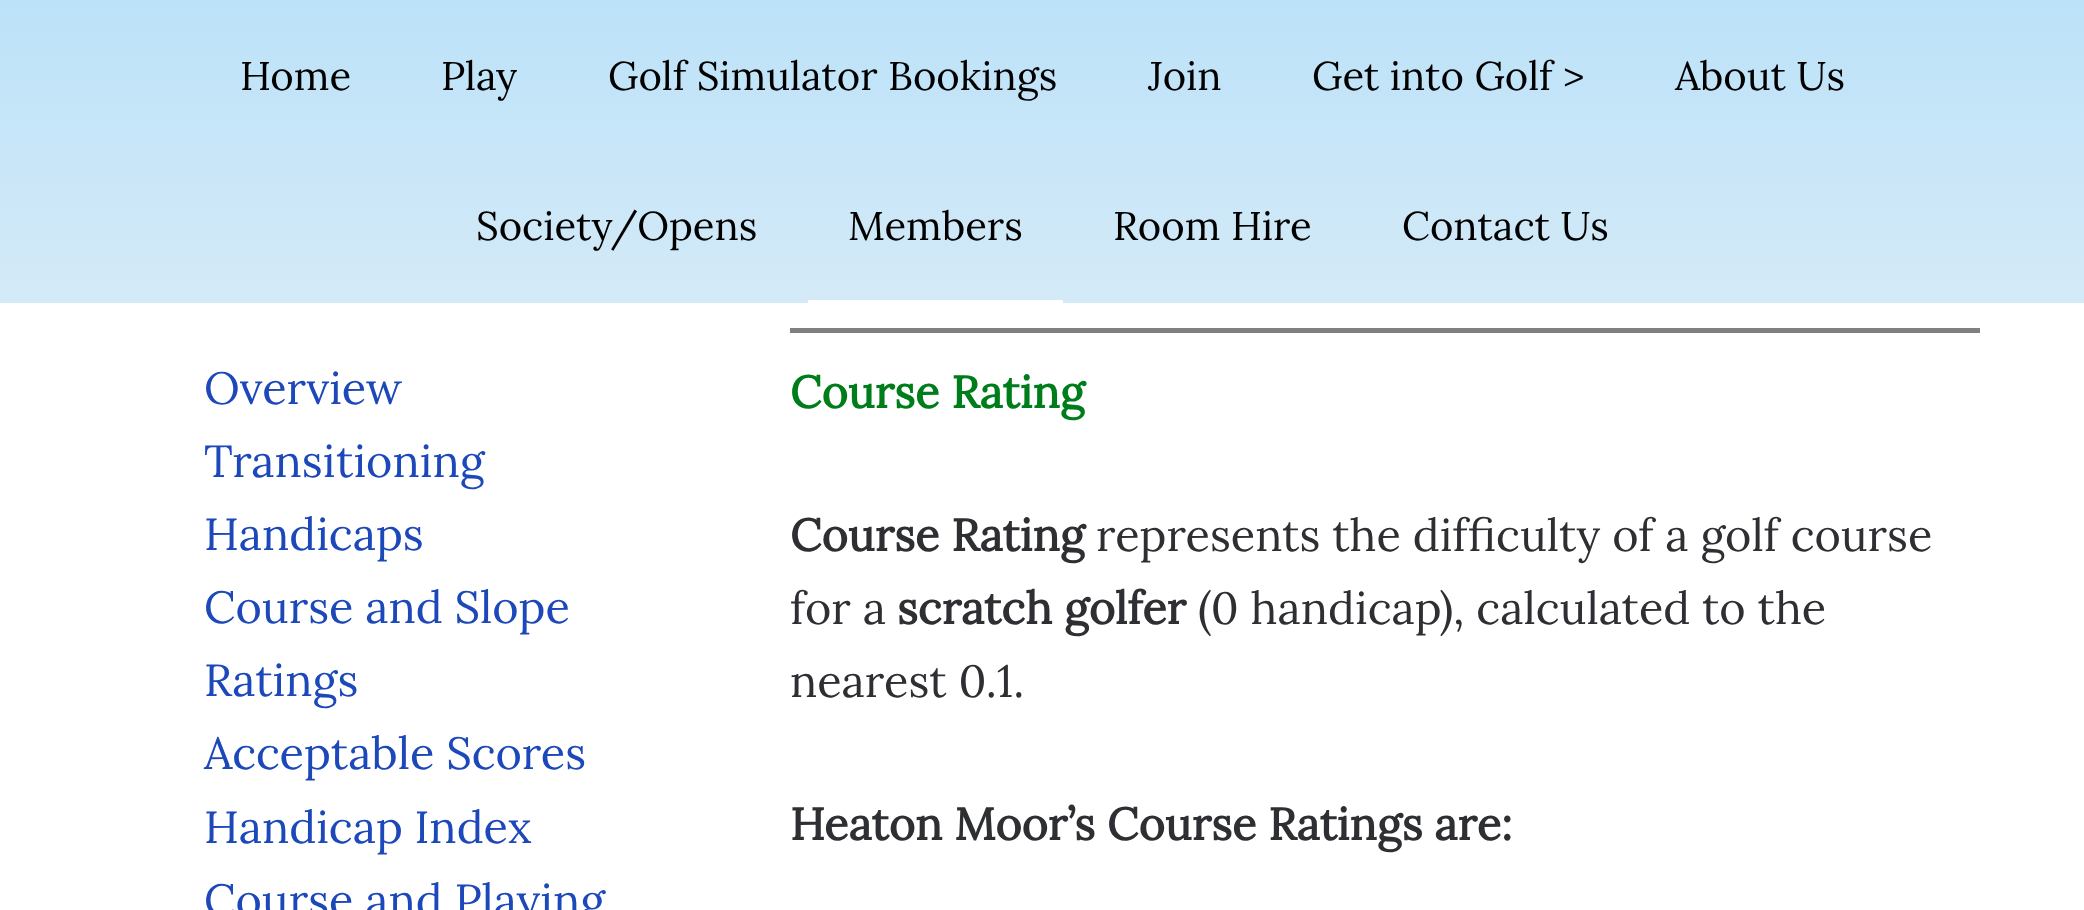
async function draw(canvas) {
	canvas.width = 2084;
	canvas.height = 910;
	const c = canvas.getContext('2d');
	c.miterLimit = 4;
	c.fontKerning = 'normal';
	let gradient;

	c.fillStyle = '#fff';
	c.fillRect(0, 0, 2084, 910);
	gradient = c.createLinearGradient(1043, 0, 1043, 303);
	gradient.addColorStop(0, '#bce2f9');
	gradient.addColorStop(1, '#d4eaf7');
	c.fillStyle = gradient;
	c.fillRect(0, 0, 2084, 303);
	c.font = '40px Lora';
	c.fillStyle = '#000';
	for (const [text, x, y] of [
		['Home', 240, 90],
		['Play', 441, 90],
		['Golf Simulator Bookings', 608, 90],
		['Join', 1148, 90],
		['Get into Golf >', 1312, 90],
		['About Us', 1675, 90],
		['Society/Opens', 476, 240],
	]) {
		c.fillText(text, x, y);
	}
	c.fillStyle = '#fff';
	c.fillRect(808, 300, 255, 3);
	c.fillStyle = '#000';
	for (const [text, x, y] of [
		['Members', 848, 240],
		['Room Hire', 1113, 240],
		['Contact Us', 1402, 240],
	]) {
		c.fillText(text, x, y);
	}
	c.font = '45px Lora';
	c.fillStyle = '#1c48b9';
	for (const [text, x, y] of [
		['Overview', 204, 404],
		['Transitioning', 204, 477],
		['Handicaps', 204, 550],
		['Course and Slope', 204, 623],
		['Ratings', 204, 696],
		['Acceptable Scores', 204, 769],
		['Handicap Index', 204, 843],
		['Course and Playing', 204, 916],
	]) {
		c.fillText(text, x, y);
	}
	c.fillStyle = '#808080';
	c.fillRect(790, 328, 1190, 5);
	c.font = 'bold 45px Lora';
	c.fillStyle = '#007d1b';
	c.fillText('Course Rating', 790, 408);
	c.fillStyle = '#2e2f33';
	c.fillText('Course Rating', 790, 551);
	c.font = '45px Lora';
	c.fillText('represents the difficulty of a golf course', 1096, 551);
	c.fillText('for a', 790, 624);
	c.font = 'bold 45px Lora';
	c.fillText('scratch golfer', 897, 624);
	c.font = '45px Lora';
	c.fillText('(0 handicap), calculated to the', 1198, 624);
	c.fillText('nearest 0.1.', 790, 697);
	c.font = 'bold 45px Lora';
	c.fillText('Heaton Moor’s Course Ratings are:', 790, 840);
}

draw(document.querySelector('canvas'));
